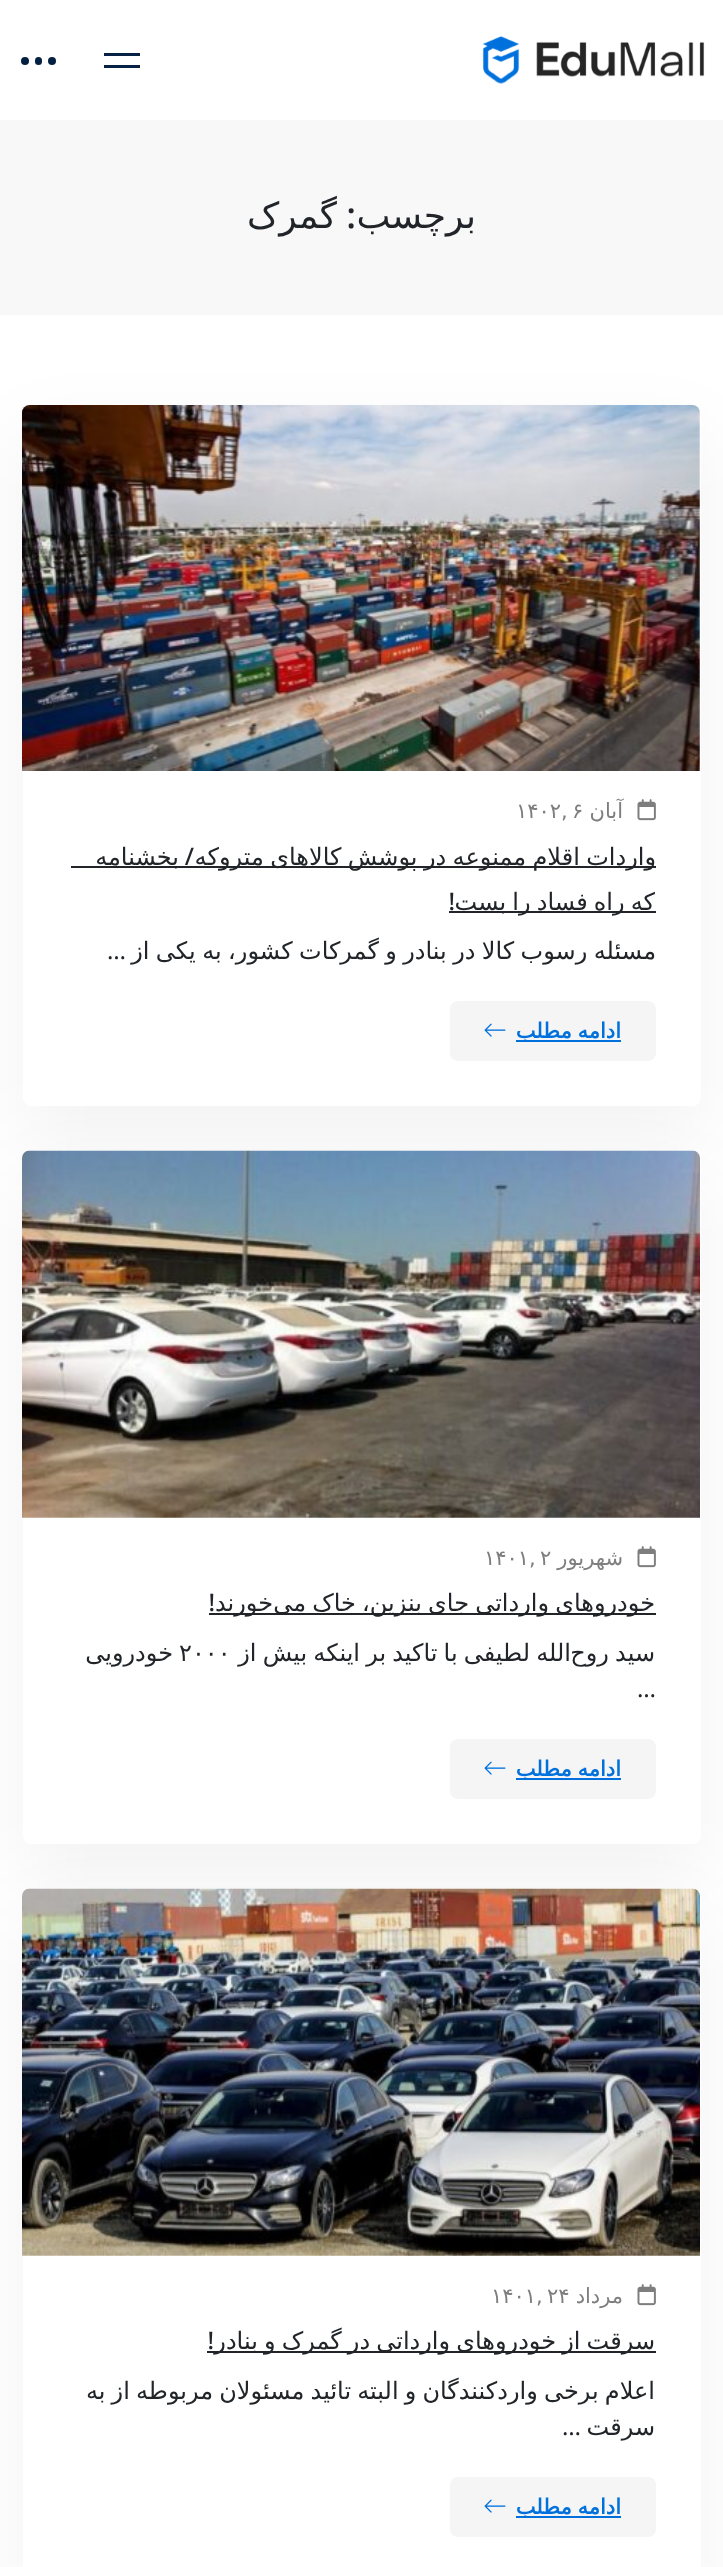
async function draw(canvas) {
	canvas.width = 723;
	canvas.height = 2567;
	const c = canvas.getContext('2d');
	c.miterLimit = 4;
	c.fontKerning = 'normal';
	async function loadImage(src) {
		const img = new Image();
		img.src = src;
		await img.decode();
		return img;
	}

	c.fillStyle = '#fff';
	c.fillRect(0, 0, 723, 2567);
	c.drawImage(await loadImage('img1.png'), 482, 36, 223, 48);
	c.fillStyle = '#062144';
	c.fillRect(104, 53, 36, 3);
	c.fillRect(104, 65, 36, 3);
	c.fillStyle = '#031f42';
	c.beginPath();
	c.arc(52, 61, 4, 0, 2 * Math.PI);
	c.fill();
	c.beginPath();
	c.roundRect(35, 57, 7, 8, 3.5);
	c.fill();
	c.beginPath();
	c.arc(25, 61, 4, 0, 2 * Math.PI);
	c.fill();
	c.fillStyle = '#f8f8f8';
	c.fillRect(0, 120, 723, 195);
	c.direction = 'rtl';
	c.font = '36px DejaVu Sans';
	c.fillStyle = '#212529';
	c.fillText('برچسب', 476, 228);
	c.font = '500 36px Noto Sans';
	c.fillText(':', 356, 228);
	c.font = '36px DejaVu Sans';
	c.fillText('گمرک', 337, 228);
	c.fillStyle = '#0000000d';
	c.filter = 'blur(37.5px)';
	c.beginPath();
	c.roundRect(23, 435, 678, 701, 8);
	c.fill();
	c.filter = 'none';
	c.fillStyle = '#fff';
	c.beginPath();
	c.roundRect(23, 405, 678, 701, 8);
	c.fill();
	c.drawImage(await loadImage('img2.png'), 22, 405, 678, 366);
	c.drawImage(await loadImage('img3.png'), 637, 799, 19, 22);
	c.font = '21px DejaVu Sans';
	c.fillStyle = '#7e7e7e';
	c.fillText('آبان', 623, 818);
	c.direction = 'ltr';
	c.fillText('۶', 572, 818);
	c.fillText('۱۴۰۲,', 516, 818);
	c.fillStyle = '#212529';
	c.fillRect(71, 866, 585, 2);
	c.wordSpacing = '-1.25px';
	c.direction = 'rtl';
	c.font = '24px DejaVu Sans';
	c.fillText('واردات اقلام ممنوعه در پوشش کالاهای متروکه', 656, 865);
	c.wordSpacing = '0px';
	c.font = '500 24px Noto Sans';
	c.fillText('/', 194, 865);
	c.font = '24px DejaVu Sans';
	c.fillText('بخشنامه', 179, 865);
	c.fillRect(449, 911, 207, 2);
	c.wordSpacing = '-1.5px';
	c.fillText('که راه فساد را بست', 655, 910);
	c.wordSpacing = '0px';
	c.font = '500 24px Noto Sans';
	c.fillText('!', 455, 910);
	c.wordSpacing = '-1.25px';
	c.font = '24px DejaVu Sans';
	c.fillText('مسئله رسوب کالا در بنادر و گمرکات کشور، به یکی از', 656, 959);
	c.wordSpacing = '0px';
	c.font = '24px Noto Sans';
	c.fillText('…', 126, 959);
	c.fillStyle = '#f5f5f5';
	c.beginPath();
	c.roundRect(450, 1001, 206, 60, 8);
	c.fill();
	c.fillStyle = '#0071dc';
	c.fillRect(516, 1040, 105, 2);
	c.wordSpacing = '-1px';
	c.font = 'bold 21px DejaVu Sans';
	c.fillText('ادامه مطلب', 621, 1038);
	c.drawImage(await loadImage('img4.png'), 484, 1023, 22, 14);
	c.fillStyle = '#0000000d';
	c.filter = 'blur(37.5px)';
	c.beginPath();
	c.roundRect(23, 1181, 678, 693, 8);
	c.fill();
	c.filter = 'none';
	c.fillStyle = '#fff';
	c.beginPath();
	c.roundRect(23, 1151, 678, 693, 8);
	c.fill();
	c.drawImage(await loadImage('img5.png'), 22, 1150, 678, 368);
	c.drawImage(await loadImage('img3.png'), 637, 1546, 19, 22);
	c.wordSpacing = '0px';
	c.font = '21px DejaVu Sans';
	c.fillStyle = '#7e7e7e';
	c.fillText('شهریور', 623, 1565);
	c.direction = 'ltr';
	c.fillText('۲', 540, 1565);
	c.fillText('۱۴۰۱,', 484, 1565);
	c.fillStyle = '#212529';
	c.fillRect(209, 1613, 447, 2);
	c.wordSpacing = '-1.5px';
	c.direction = 'rtl';
	c.font = '24px DejaVu Sans';
	c.fillText('خودروهای وارداتی جای بنزین، خاک می', 655, 1611);
	c.wordSpacing = '0px';
	c.fillText('خورند', 273, 1611);
	c.font = '500 24px Noto Sans';
	c.fillText('!', 215, 1611);
	c.wordSpacing = '-1.5px';
	c.font = '24px DejaVu Sans';
	c.fillText('الله لطیفی با تاکید بر اینکه بیش از', 571, 1661);
	c.fillText('سید روح', 655, 1661);
	c.wordSpacing = '0px';
	c.direction = 'ltr';
	c.fillText('۲۰۰۰', 179, 1661);
	c.direction = 'rtl';
	c.fillText('خودرویی', 173, 1661);
	c.direction = 'ltr';
	c.font = '24px Noto Sans';
	c.fillText('…', 637, 1697);
	c.fillStyle = '#f5f5f5';
	c.beginPath();
	c.roundRect(450, 1739, 206, 60, 8);
	c.fill();
	c.fillStyle = '#0071dc';
	c.fillRect(516, 1778, 105, 2);
	c.wordSpacing = '-1px';
	c.direction = 'rtl';
	c.font = 'bold 21px DejaVu Sans';
	c.fillText('ادامه مطلب', 621, 1776);
	c.drawImage(await loadImage('img4.png'), 484, 1761, 22, 14);
	c.fillStyle = '#0000000d';
	c.filter = 'blur(37.5px)';
	c.beginPath();
	c.roundRect(23, 1919, 678, 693, 8);
	c.fill();
	c.filter = 'none';
	c.fillStyle = '#fff';
	c.beginPath();
	c.roundRect(23, 1889, 678, 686, 8);
	c.fill();
	c.drawImage(await loadImage('img6.png'), 22, 1888, 678, 368);
	c.drawImage(await loadImage('img3.png'), 637, 2284, 19, 22);
	c.wordSpacing = '0px';
	c.font = '21px DejaVu Sans';
	c.fillStyle = '#7e7e7e';
	c.fillText('مرداد', 623, 2303);
	c.direction = 'ltr';
	c.fillText('۲۴', 547, 2303);
	c.fillText('۱۴۰۱,', 491, 2303);
	c.fillStyle = '#212529';
	c.fillRect(207, 2351, 449, 2);
	c.wordSpacing = '-1.5px';
	c.direction = 'rtl';
	c.font = '24px DejaVu Sans';
	c.fillText('سرقت از خودروهای وارداتی در گمرک و بنادر', 655, 2349);
	c.wordSpacing = '0px';
	c.font = '500 24px Noto Sans';
	c.fillText('!', 214, 2349);
	c.wordSpacing = '-1.5px';
	c.font = '24px DejaVu Sans';
	c.fillText('اعلام برخی واردکنندگان و البته تائید مسئولان مربوطه از به', 655, 2399);
	c.wordSpacing = '0px';
	c.fillText('سرقت', 655, 2435);
	c.font = '24px Noto Sans';
	c.fillText('…', 581, 2435);
	c.fillStyle = '#f5f5f5';
	c.beginPath();
	c.roundRect(450, 2477, 206, 60, 8);
	c.fill();
	c.fillStyle = '#0071dc';
	c.fillRect(516, 2516, 105, 2);
	c.wordSpacing = '-1px';
	c.font = 'bold 21px DejaVu Sans';
	c.fillText('ادامه مطلب', 621, 2514);
	c.drawImage(await loadImage('img4.png'), 484, 2499, 22, 14);
}

draw(document.querySelector('canvas'));
